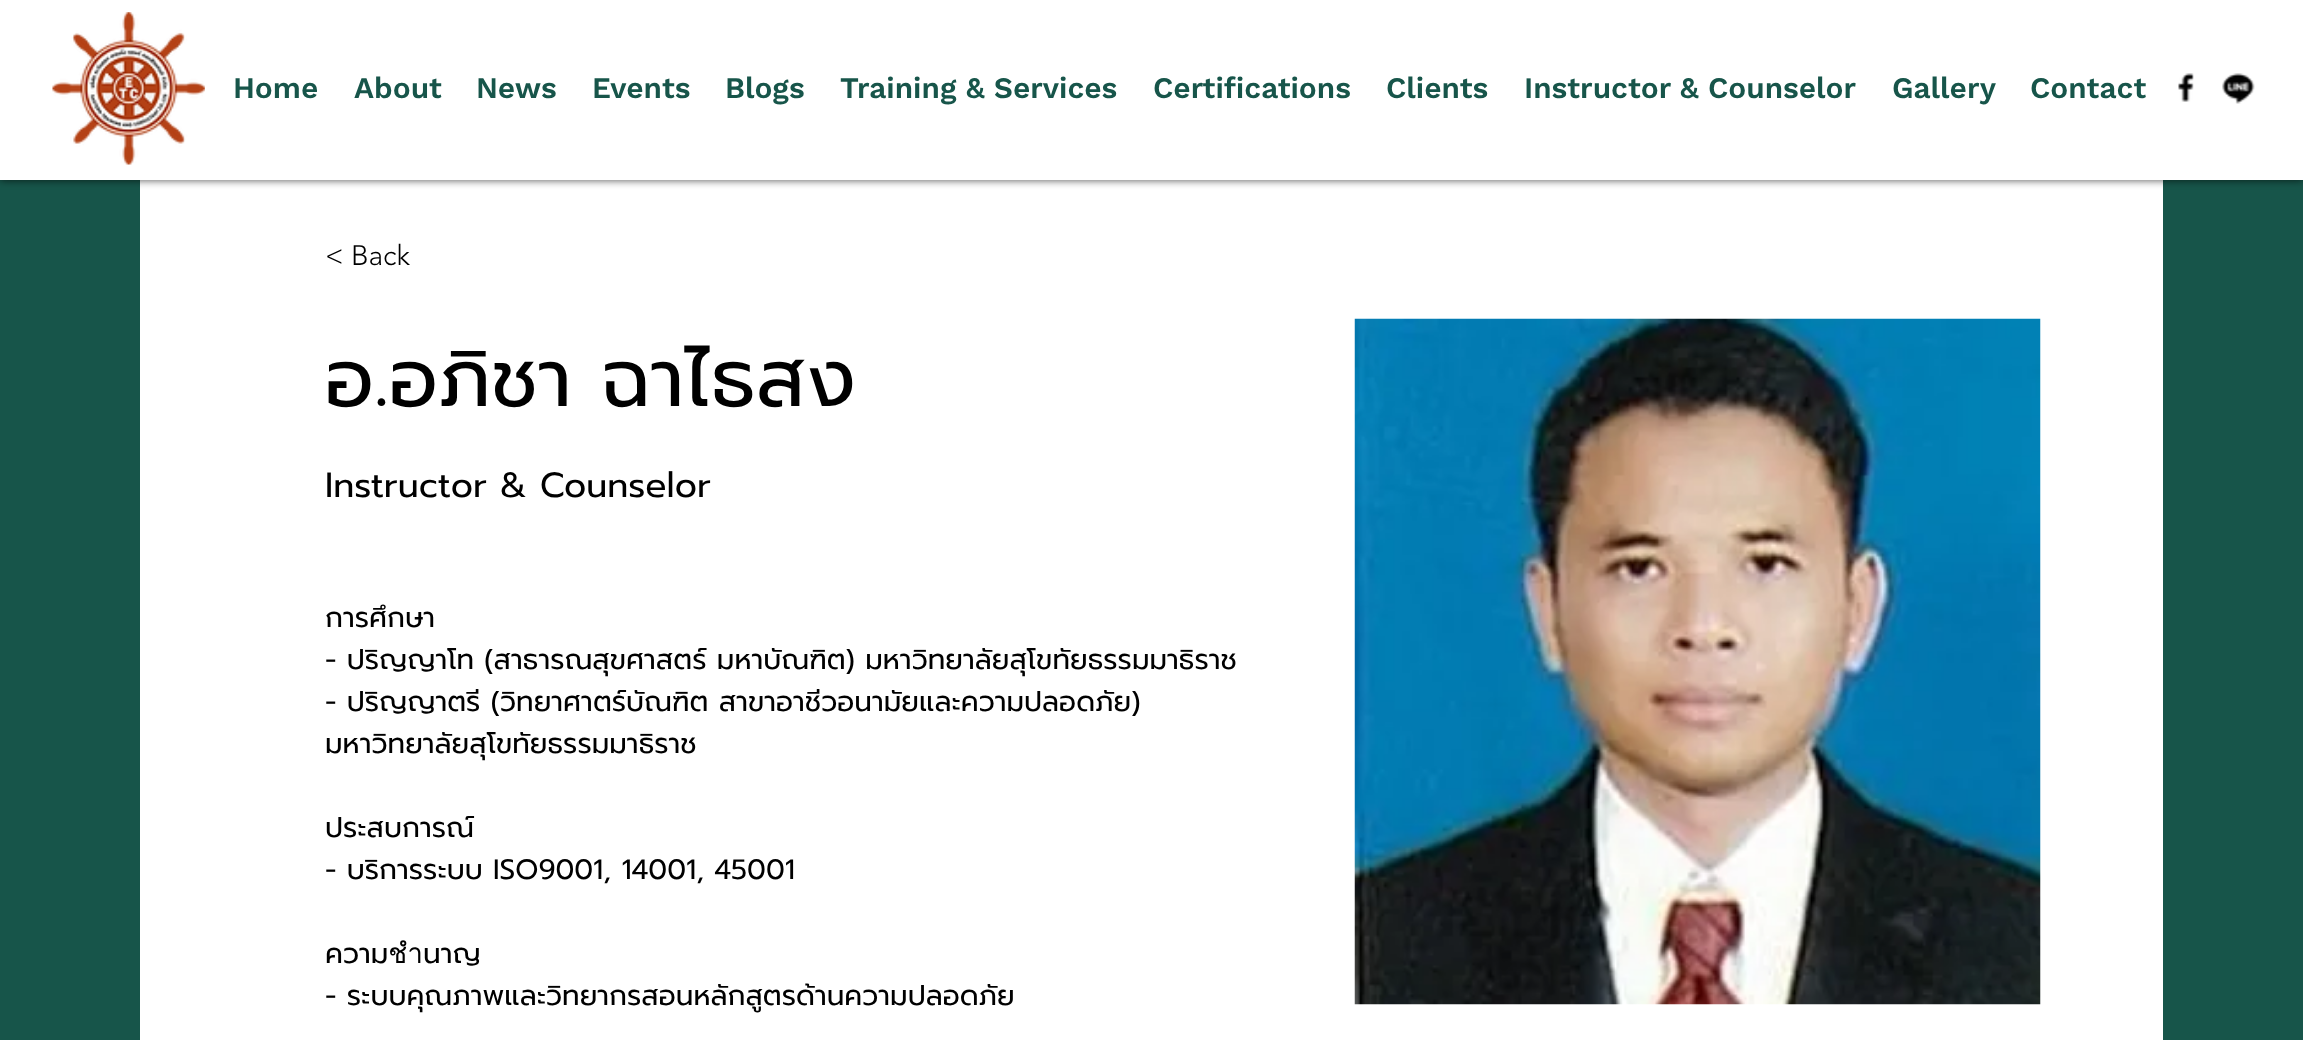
async function draw(canvas) {
	canvas.width = 2303;
	canvas.height = 1040;
	const c = canvas.getContext('2d');
	c.miterLimit = 4;
	c.fontKerning = 'normal';
	async function loadImage(src) {
		const img = new Image();
		img.src = src;
		await img.decode();
		return img;
	}

	c.fillStyle = '#17554a';
	c.fillRect(0, 0, 2303, 1040);
	c.fillStyle = '#fff';
	c.fillRect(140, 180, 2023, 860);
	c.fillStyle = '#000000b3';
	c.filter = 'blur(4.5px)';
	c.beginPath();
	c.rect(0, 0, 2303, 180);
	c.fill();
	c.filter = 'none';
	c.fillStyle = '#fff';
	c.fillRect(0, 0, 2303, 180);
	c.drawImage(await loadImage('img1.png'), 52, 12, 153, 153);
	c.font = '600 29.75px Work Sans';
	c.fillStyle = '#17554a';
	for (const [text, x, y] of [
		['Home', 233, 98],
		['About', 354, 98],
		['News', 476, 98],
		['Events', 592, 98],
		['Blogs', 725, 98],
		['Training & Services', 840, 98],
		['Certifications', 1153, 98],
		['Clients', 1386, 98],
		['Instructor & Counselor', 1524, 98],
		['Gallery', 1892, 98],
		['Contact', 2030, 98],
	]) {
		c.fillText(text, x, y);
	}
	c.drawImage(await loadImage('img2.png'), 2178, 73, 16, 29);
	c.drawImage(await loadImage('img3.png'), 2222, 73, 33, 31);
	c.font = '300 28px "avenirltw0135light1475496"';
	c.fillStyle = '#000';
	c.fillText('< Back', 325, 265);
	c.font = '80.5px Prompt';
	c.fillText('อ.อภิชา ฉาไธสง', 325, 406);
	c.font = '35px Prompt';
	c.fillText('Instructor & Counselor', 325, 497);
	c.font = '28px Prompt';
	for (const [text, x, y] of [
		['การศึกษา', 325, 627],
		['- ปริญญาโท (สาธารณสุขศาสตร์ มหาบัณฑิต) มหาวิทยาลัยสุโขทัยธรรมมาธิราช', 325, 669],
		['- ปริญญาตรี (วิทยาศาตร์บัณฑิต สาขาอาชีวอนามัยและความปลอดภัย)', 325, 711],
		['มหาวิทยาลัยสุโขทัยธรรมมาธิราช', 325, 753],
		['ประสบการณ์', 325, 837],
		['- บริการระบบ ISO9001, 14001, 45001', 325, 879],
		['ความชำนาญ', 325, 963],
		['- ระบบคุณภาพและวิทยากรสอนหลักสูตรด้านความปลอดภัย', 325, 1005],
	]) {
		c.fillText(text, x, y);
	}
	c.drawImage(await loadImage('img4.png'), 1354, 318, 687, 687);
}

draw(document.querySelector('canvas'));
